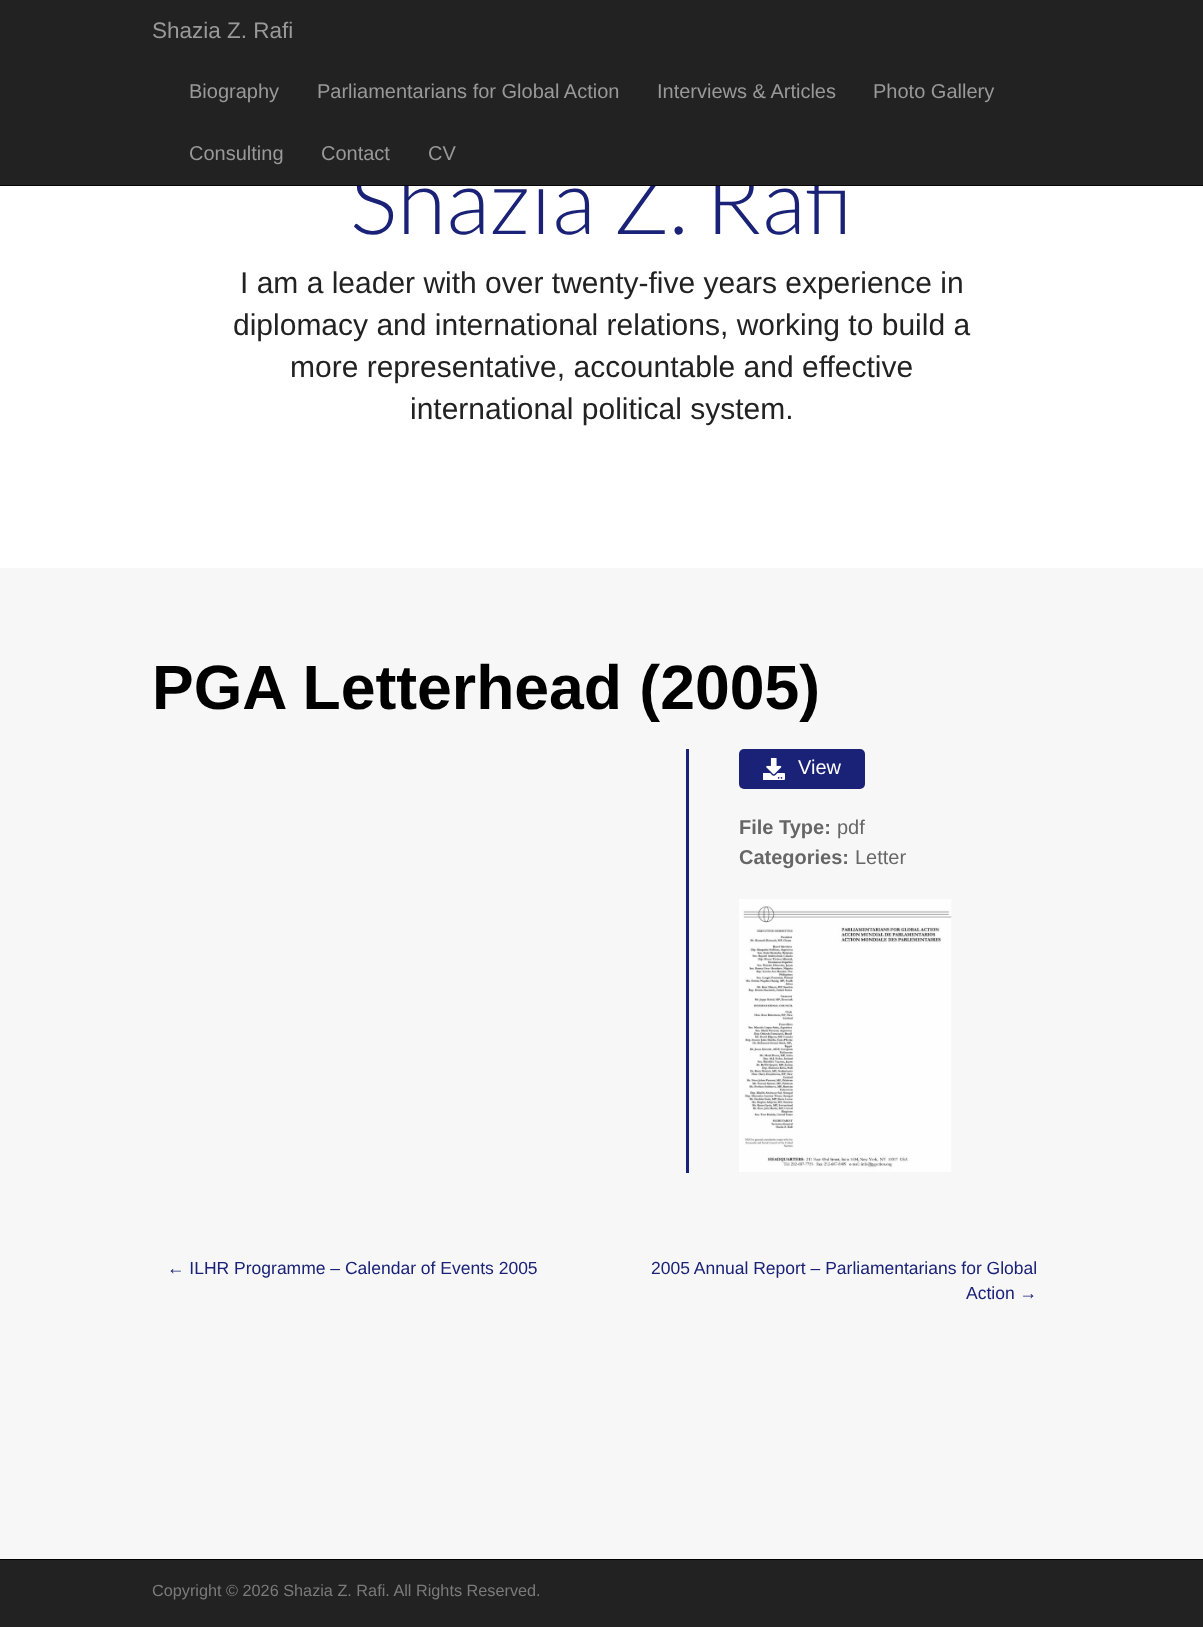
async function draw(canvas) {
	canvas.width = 1203;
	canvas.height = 1627;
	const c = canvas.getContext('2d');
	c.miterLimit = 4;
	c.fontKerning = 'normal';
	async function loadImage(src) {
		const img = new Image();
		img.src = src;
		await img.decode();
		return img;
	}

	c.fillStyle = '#f7f7f7';
	c.fillRect(0, 0, 1203, 1627);
	c.fillStyle = '#fff';
	c.fillRect(0, 186, 1203, 382);
	c.font = '300 90px Lato';
	c.fillStyle = '#1a2277';
	c.fillText('Shazia Z. Rafi', 350, 234);
	c.fillStyle = '#222';
	c.fillRect(0, 0, 1203, 185);
	c.fillStyle = '#080808';
	c.fillRect(0, 185, 1203, 1);
	c.font = '22.5px Liberation Sans';
	c.fillStyle = '#999';
	c.fillText('Shazia Z. Rafi', 152, 38);
	c.font = '20px Liberation Sans';
	for (const [text, x, y] of [
		['Biography', 189, 98],
		['Parliamentarians for Global Action', 317, 98],
		['Interviews & Articles', 657, 98],
		['Photo Gallery', 873, 98],
		['Consulting', 189, 160],
		['Contact', 321, 160],
		['CV', 428, 160],
	]) {
		c.fillText(text, x, y);
	}
	c.font = '30px Liberation Sans';
	c.fillStyle = '#222';
	for (const [text, x, y] of [
		['I am a leader with over twenty-five years experience in', 240, 293],
		['diplomacy and international relations, working to build a', 233, 335],
		['more representative, accountable and effective', 290, 377],
		['international political system.', 410, 419],
	]) {
		c.fillText(text, x, y);
	}
	c.font = 'bold 62.5px Liberation Sans';
	c.fillStyle = '#000';
	c.fillText('PGA Letterhead (2005)', 152, 709);
	c.fillStyle = '#1a2277';
	c.fillRect(686, 749, 3, 424);
	c.beginPath();
	c.roundRect(739, 749, 126, 40, 5);
	c.fill();
	c.drawImage(await loadImage('img1.png'), 763, 758, 22, 22);
	c.font = '20px Liberation Sans';
	c.fillStyle = '#fff';
	c.fillText('View', 798, 774);
	c.font = 'bold 20px Liberation Sans';
	c.fillStyle = '#666';
	c.fillText('File Type:', 739, 834);
	c.font = '20px Liberation Sans';
	c.fillText('pdf', 837, 834);
	c.font = 'bold 20px Liberation Sans';
	c.fillText('Categories:', 739, 864);
	c.font = '20px Liberation Sans';
	c.fillText('Letter', 855, 864);
	c.drawImage(await loadImage('img2.png'), 739, 899, 213, 273);
	c.font = '17.5px Liberation Sans';
	c.fillStyle = '#1a2277';
	for (const [text, x, y] of [
		['← ILHR Programme – Calendar of Events 2005', 167, 1274],
		['2005 Annual Report – Parliamentarians for Global', 651, 1274],
		['Action →', 966, 1299],
	]) {
		c.fillText(text, x, y);
	}
	c.fillStyle = '#222';
	c.fillRect(0, 1560, 1203, 67);
	c.fillStyle = '#000';
	c.fillRect(0, 1559, 1203, 1);
	c.font = '16.25px Liberation Sans';
	c.fillStyle = '#7b7b7b';
	c.fillText('Copyright © 2026 Shazia Z. Rafi. All Rights Reserved.', 152, 1596);
}

draw(document.querySelector('canvas'));
